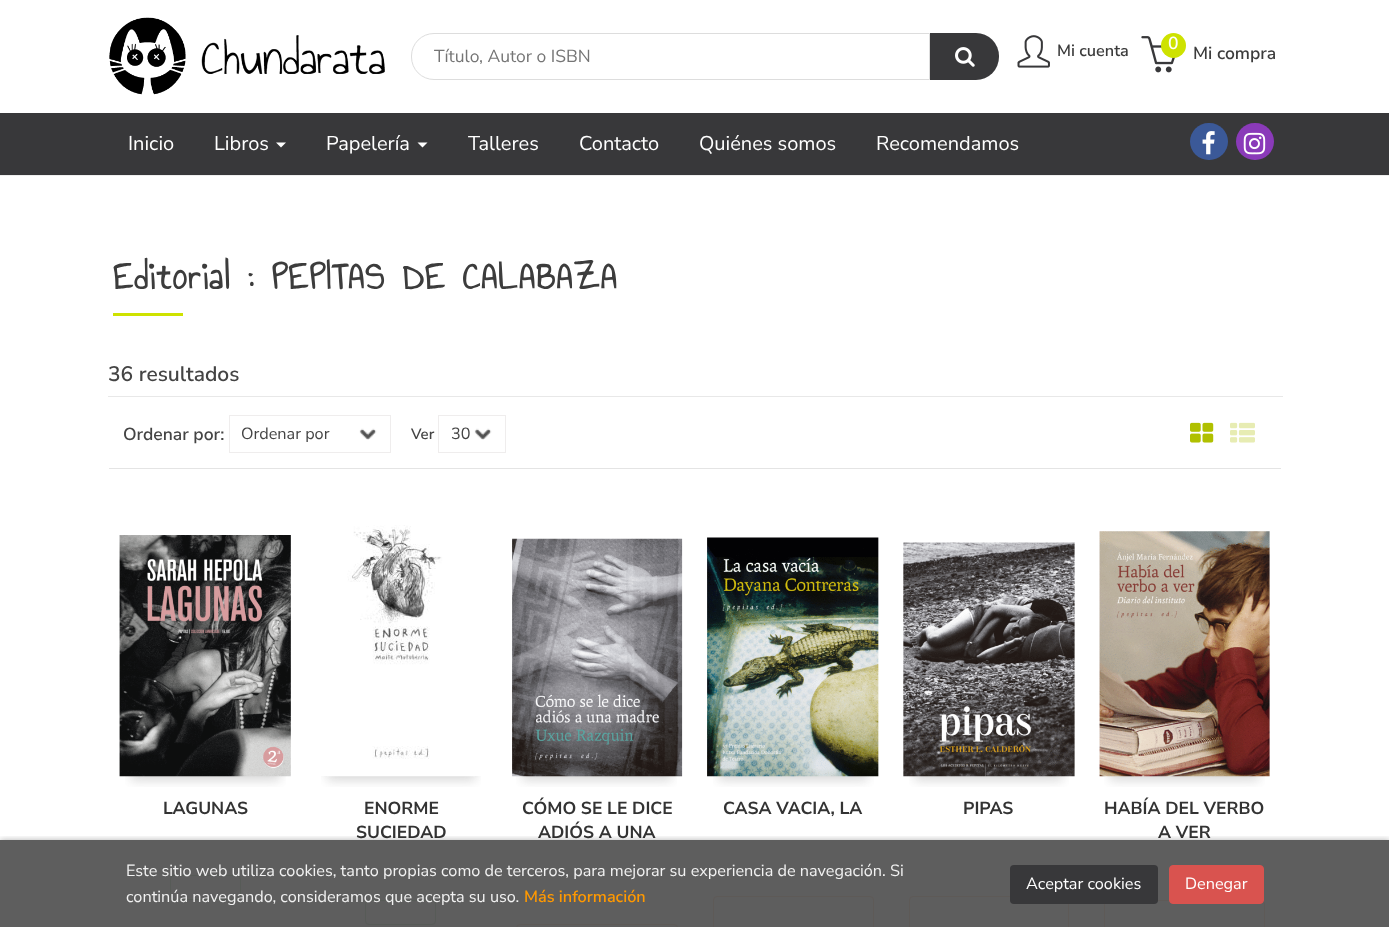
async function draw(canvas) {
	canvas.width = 1389;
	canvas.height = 927;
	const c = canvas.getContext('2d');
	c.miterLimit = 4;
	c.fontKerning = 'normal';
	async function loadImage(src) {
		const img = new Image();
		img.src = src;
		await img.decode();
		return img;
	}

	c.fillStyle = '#fff';
	c.fillRect(0, 0, 1389, 927);
	c.fillStyle = '#5e5e5e';
	c.fillRect(0, 840, 1389, 87);
	c.drawImage(await loadImage('img1.png'), 109, 17, 276, 78);
	c.beginPath();
	c.roundRect(411.5, 33.5, 518, 46, [22.5, 0, 0, 22.5]);
	c.strokeStyle = '#ddd';
	c.stroke();
	c.font = '17.5px Nunito Sans';
	c.fillStyle = '#757575';
	c.fillText('Título, Autor o ISBN', 434, 62);
	c.fillStyle = '#38383a';
	c.beginPath();
	c.roundRect(930, 33, 69, 47, [0, 23, 23, 0]);
	c.fill();
	c.drawImage(await loadImage('img2.png'), 955, 47, 20, 20);
	c.drawImage(await loadImage('img3.png'), 1017, 35, 33, 33);
	c.font = '600 16.25px Nunito Sans';
	c.fillStyle = '#3c3c3c';
	c.fillText('Mi cuenta', 1057, 56);
	c.drawImage(await loadImage('img4.png'), 1141, 36, 35, 37);
	c.fillStyle = '#cee200';
	c.beginPath();
	c.arc(1173.5, 45.5, 12.5, 0, 2 * Math.PI);
	c.fill();
	c.font = '600 17.5px Nunito Sans';
	c.fillStyle = '#fff';
	c.fillText('0', 1168, 49);
	c.fillStyle = '#3c3c3c';
	c.fillText('Mi compra', 1193, 59);
	c.fillStyle = '#38383a';
	c.fillRect(0, 113, 1389, 62);
	c.fillStyle = '#eee';
	c.fillRect(0, 175, 1389, 1);
	c.font = '20px Nunito Sans';
	c.fillStyle = '#fff';
	c.fillText('Inicio', 128, 150);
	c.fillText('Libros', 214, 150);
	c.beginPath();
	c.moveTo(276, 142.5);
	c.lineTo(286, 142.5);
	c.lineTo(281, 147.5);
	c.closePath();
	c.fill();
	c.fillText('Papelería', 326, 150);
	c.beginPath();
	c.moveTo(417.5, 142.5);
	c.lineTo(427.5, 142.5);
	c.lineTo(422.5, 147.5);
	c.closePath();
	c.fill();
	for (const [text, x, y] of [
		['Talleres', 468, 150],
		['Contacto', 579, 150],
		['Quiénes somos', 699, 150],
		['Recomendamos', 876, 150],
	]) {
		c.fillText(text, x, y);
	}
	c.fillStyle = '#3b5998';
	c.beginPath();
	c.roundRect(1190, 123, 38, 37, 18.5);
	c.fill();
	c.drawImage(await loadImage('img5.png'), 1202, 131, 13, 24);
	c.fillStyle = '#8a3ab9';
	c.beginPath();
	c.roundRect(1236, 123, 38, 37, 18.5);
	c.fill();
	c.drawImage(await loadImage('img6.png'), 1243, 132, 23, 23);
	c.letterSpacing = '1.5px';
	c.font = 'bold 40px Annie Use Your Telescope';
	c.fillStyle = '#3c3c3c';
	c.fillText('Editorial : PEPITAS DE CALABAZA', 113, 289);
	c.fillStyle = '#cee200';
	c.fillRect(113, 313, 70, 3);
	c.fillStyle = '#e8e8e8';
	c.fillRect(108, 396, 1175, 1);
	c.letterSpacing = '0px';
	c.font = '600 21px Nunito Sans';
	c.fillStyle = '#444';
	c.fillText('36 resultados', 108, 381);
	c.fillStyle = '#e4e4e4';
	c.fillRect(109, 468, 1172, 1);
	c.font = '600 17.5px Nunito Sans';
	c.fillStyle = '#444';
	c.fillText('Ordenar por:', 123, 440);
	c.drawImage(await loadImage('img7.png'), 359, 428, 18, 12);
	c.strokeStyle = '#efeded';
	c.strokeRect(229.5, 415.5, 161, 37);
	c.font = '16.25px Nunito Sans';
	c.fillText('Ordenar por', 241, 439);
	c.font = '600 15px Nunito Sans';
	c.fillText('Ver', 411, 439);
	c.drawImage(await loadImage('img8.png'), 474, 428, 18, 12);
	c.strokeRect(438.5, 415.5, 67, 37);
	c.font = '16.25px Nunito Sans';
	c.fillText('30', 451, 439);
	c.drawImage(await loadImage('img9.png'), 1190, 422, 24, 21);
	c.drawImage(await loadImage('img10.png'), 1230, 422, 25, 21);
	c.drawImage(await loadImage('img12.png'), 125, 776, 161, 11);
	c.drawImage(await loadImage('img11.png'), 119, 535, 172, 242);
	c.font = 'bold 17.5px Nunito Sans';
	c.fillStyle = '#333';
	c.fillText('LAGUNAS', 163, 814);
	c.beginPath();
	c.roundRect(170.5, 875.5, 70, 24, 3.5);
	c.strokeStyle = '#575b57';
	c.stroke();
	c.drawImage(await loadImage('img14.png'), 321, 776, 160, 11);
	c.drawImage(await loadImage('img13.png'), 327, 525, 148, 252);
	c.fillText('ENORME', 364, 814);
	c.fillText('SUCIEDAD', 356, 838);
	c.beginPath();
	c.roundRect(365.5, 900.5, 70, 24, 3.5);
	c.stroke();
	c.drawImage(await loadImage('img16.png'), 516, 776, 161, 11);
	c.drawImage(await loadImage('img15.png'), 512, 538, 171, 239);
	c.fillText('CÓMO SE LE DICE', 522, 814);
	c.fillText('ADIÓS A UNA', 538, 838);
	c.beginPath();
	c.roundRect(516.5, 924.5, 161, 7, 3.5);
	c.strokeStyle = '#5e5a57';
	c.stroke();
	c.drawImage(await loadImage('img18.png'), 713, 776, 161, 11);
	c.drawImage(await loadImage('img17.png'), 707, 537, 172, 240);
	c.fillText('CASA VACIA, LA', 723, 814);
	c.beginPath();
	c.roundRect(713.5, 896.5, 160, 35, 3.5);
	c.stroke();
	c.drawImage(await loadImage('img20.png'), 909, 776, 160, 11);
	c.drawImage(await loadImage('img19.png'), 903, 542, 172, 235);
	c.fillText('PIPAS', 963, 814);
	c.beginPath();
	c.roundRect(909.5, 896.5, 159, 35, 3.5);
	c.stroke();
	c.drawImage(await loadImage('img22.png'), 1104, 776, 161, 11);
	c.drawImage(await loadImage('img21.png'), 1099, 531, 171, 246);
	c.fillText('HABÍA DEL VERBO', 1104, 814);
	c.fillText('A VER', 1158, 838);
	c.beginPath();
	c.roundRect(1104.5, 900.5, 160, 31, 3.5);
	c.stroke();
	c.save();
	c.beginPath();
	c.rect(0, 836, 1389, 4);
	c.clip();
	c.fillStyle = '#0000004d';
	c.filter = 'blur(3px)';
	c.beginPath();
	c.rect(0, 840, 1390, 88);
	c.fill();
	c.filter = 'none';
	c.restore();
	c.font = '16.25px Nunito Sans';
	c.fillStyle = '#f2f2f2';
	c.fillText('Este sitio web utiliza cookies, tanto propias como de terceros, para mejorar su experiencia de navegación. Si', 126, 876);
	c.fillText('continúa navegando, consideramos que acepta su uso.', 126, 902);
	c.font = '600 16.25px Nunito Sans';
	c.fillStyle = '#f90';
	c.fillText('Más información', 524, 902);
	c.fillStyle = '#38383a';
	c.beginPath();
	c.roundRect(1010, 865, 148, 39, 4);
	c.fill();
	c.font = '16.25px Nunito Sans';
	c.fillStyle = '#fff';
	c.fillText('Aceptar cookies', 1026, 889);
	c.fillStyle = '#d9534f';
	c.beginPath();
	c.roundRect(1169.5, 865.5, 94, 38, 3.5);
	c.fill();
	c.strokeStyle = '#d9534f';
	c.stroke();
	c.fillStyle = '#fff';
	c.fillText('Denegar', 1185, 889);
}

draw(document.querySelector('canvas'));
